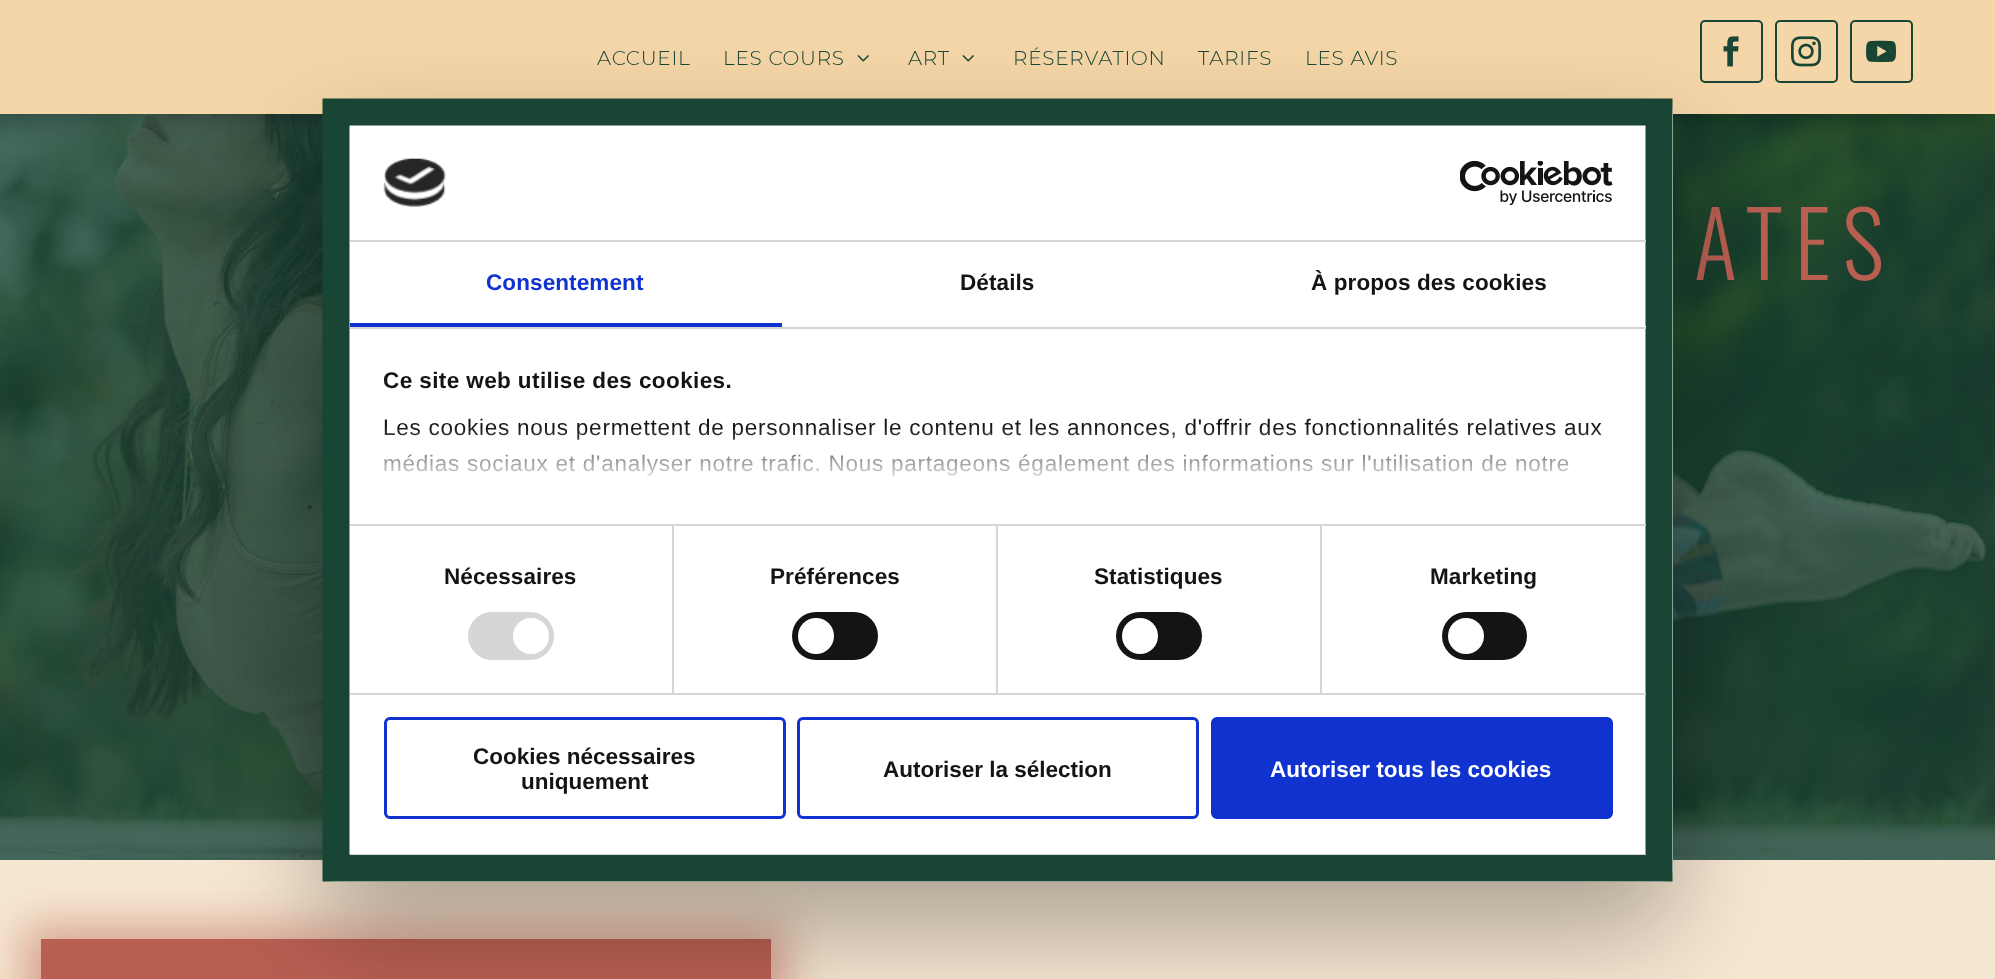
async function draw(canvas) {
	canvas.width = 1995;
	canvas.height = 979;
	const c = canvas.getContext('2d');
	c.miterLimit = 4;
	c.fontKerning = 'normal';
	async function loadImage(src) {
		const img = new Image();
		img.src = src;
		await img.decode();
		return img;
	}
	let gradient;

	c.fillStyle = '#476a5d';
	c.fillRect(0, 0, 1995, 979);
	c.drawImage(await loadImage('img5.png'), 0, 114, 1995, 746);
	c.fillStyle = '#0000004d';
	c.filter = 'blur(13.5px)';
	c.beginPath();
	c.rect(0, 3, 1995, 114);
	c.fill();
	c.filter = 'none';
	c.fillStyle = '#f4d6a8';
	c.fillRect(0, 0, 1995, 114);
	c.letterSpacing = '0.75px';
	c.font = '300 20px Montserrat';
	c.fillStyle = '#194535';
	c.fillText('ACCUEIL', 597, 65);
	c.fillText('LES COURS', 723, 65);
	c.drawImage(await loadImage('img1.png'), 857, 55, 12, 7);
	c.fillText('ART', 908, 65);
	c.drawImage(await loadImage('img1.png'), 962, 55, 12, 7);
	for (const [text, x, y] of [
		['RÉSERVATION', 1013, 65],
		['TARIFS', 1198, 65],
		['LES AVIS', 1305, 65],
	]) {
		c.fillText(text, x, y);
	}
	c.beginPath();
	c.roundRect(1701, 21, 61, 61, 4);
	c.strokeStyle = '#194535';
	c.lineWidth = 2;
	c.stroke();
	c.drawImage(await loadImage('img2.png'), 1723, 36, 16, 31);
	c.beginPath();
	c.roundRect(1776, 21, 61, 61, 4);
	c.stroke();
	c.drawImage(await loadImage('img3.png'), 1791, 36, 30, 31);
	c.beginPath();
	c.roundRect(1851, 21, 61, 61, 4);
	c.stroke();
	c.drawImage(await loadImage('img4.png'), 1866, 40, 30, 23);
	c.letterSpacing = '12px';
	c.font = '300 90px Oswald';
	c.fillStyle = '#b95f52';
	c.fillText('ATES', 1694, 280);
	c.fillStyle = '#f6e7d1';
	c.fillRect(0, 860, 1995, 119);
	c.fillStyle = '#b95f5285';
	c.filter = 'blur(22px)';
	c.beginPath();
	c.rect(24, 926, 764, 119);
	c.fill();
	c.filter = 'none';
	c.fillStyle = '#b95f52';
	c.fillRect(41, 939, 730, 40);
	c.fillStyle = '#0000004d';
	c.filter = 'blur(51px)';
	c.beginPath();
	c.roundRect(323, 147, 1350, 783, 12);
	c.fill();
	c.filter = 'none';
	c.fillStyle = '#fff';
	c.beginPath();
	c.roundRect(323, 99, 1350, 783, 12);
	c.fill();
	c.beginPath();
	c.moveTo(336, 112);
	c.lineTo(1659, 112);
	c.lineTo(1659, 868);
	c.lineTo(336, 868);
	c.closePath();
	c.lineWidth = 27;
	c.stroke();
	c.fillStyle = '#d6d6d6';
	c.fillRect(350, 240, 1296, 2);
	c.drawImage(await loadImage('img6.png'), 383, 158, 63, 49);
	c.drawImage(await loadImage('img7.png'), 1460, 161, 153, 45);
	c.fillRect(350, 327, 1296, 2);
	c.fillStyle = '#1032cf';
	c.fillRect(350, 323, 432, 4);
	c.letterSpacing = '0.1px';
	c.font = 'bold 22.5px Liberation Sans';
	c.fillText('Consentement', 486, 290);
	c.fillStyle = '#141414';
	c.fillText('Détails', 960, 290);
	c.fillStyle = '#fff';
	c.fillRect(1645, 326, 1, 1);
	c.fillStyle = '#141414';
	c.fillText('À propos des cookies', 1311, 290);
	for (const [x, y, w, h, color] of [
		[672, 525, 2, 168, '#d6d6d6'],
		[996, 525, 2, 168, '#d6d6d6'],
		[1320, 525, 2, 168, '#d6d6d6'],
		[350, 524, 1296, 2, '#d6d6d6'],
	]) {
		c.fillStyle = color;
		c.fillRect(x, y, w, h);
	}
	c.letterSpacing = '0.4px';
	c.fillStyle = '#141414';
	c.fillText('Ce site web utilise des cookies.', 383, 388);
	c.letterSpacing = '0.75px';
	c.font = '22.5px Liberation Sans';
	c.fillText('Les cookies nous permettent de personnaliser le contenu et les annonces, d\'offrir des fonctionnalités relatives aux', 383, 435);
	c.fillText('médias sociaux et d\'analyser notre trafic. Nous partageons également des informations sur l\'utilisation de notre', 383, 471);
	gradient = c.createLinearGradient(983, 523, 983, 426);
	gradient.addColorStop(0, '#fff');
	gradient.addColorStop(0.5, '#ffffffcc');
	gradient.addColorStop(1, '#ffffff00');
	c.fillStyle = gradient;
	c.fillRect(384, 427, 1218, 49);
	c.fillStyle = '#d6d6d6';
	c.fillRect(350, 693, 1296, 2);
	c.letterSpacing = '0.1px';
	c.font = 'bold 22.5px Liberation Sans';
	c.fillStyle = '#141414';
	c.fillText('Nécessaires', 444, 584);
	c.fillStyle = '#d6d6d6';
	c.beginPath();
	c.roundRect(468, 612, 86, 48, 24);
	c.fill();
	c.fillStyle = '#fff';
	c.beginPath();
	c.arc(531, 636, 18, 0, 2 * Math.PI);
	c.fill();
	c.fillStyle = '#141414';
	c.fillText('Préférences', 770, 584);
	c.beginPath();
	c.roundRect(792, 612, 86, 48, 24);
	c.fill();
	c.fillStyle = '#fff';
	c.beginPath();
	c.arc(816, 636, 18, 0, 2 * Math.PI);
	c.fill();
	c.fillStyle = '#141414';
	c.fillText('Statistiques', 1094, 584);
	c.beginPath();
	c.roundRect(1116, 612, 86, 48, 24);
	c.fill();
	c.fillStyle = '#fff';
	c.beginPath();
	c.arc(1140, 636, 18, 0, 2 * Math.PI);
	c.fill();
	c.fillStyle = '#141414';
	c.fillText('Marketing', 1430, 584);
	c.beginPath();
	c.roundRect(1442, 612, 85, 48, 24);
	c.fill();
	c.fillStyle = '#fff';
	c.beginPath();
	c.arc(1466, 636, 18, 0, 2 * Math.PI);
	c.fill();
	c.fillStyle = '#d6d6d6';
	c.fillRect(350, 854, 1296, 1);
	c.beginPath();
	c.roundRect(385.5, 718.5, 399, 99, 4.5);
	c.strokeStyle = '#1032cf';
	c.lineWidth = 3;
	c.stroke();
	c.letterSpacing = '0px';
	c.fillStyle = '#141414';
	c.fillText('Cookies nécessaires', 473, 764);
	c.fillText('uniquement', 521, 789);
	c.beginPath();
	c.roundRect(798.5, 718.5, 399, 99, 4.5);
	c.stroke();
	c.fillText('Autoriser la sélection', 883, 777);
	c.fillStyle = '#1032cf';
	c.beginPath();
	c.roundRect(1212.5, 718.5, 399, 99, 4.5);
	c.fill();
	c.stroke();
	c.fillStyle = '#fff';
	c.fillText('Autoriser tous les cookies', 1270, 777);
}

draw(document.querySelector('canvas'));
